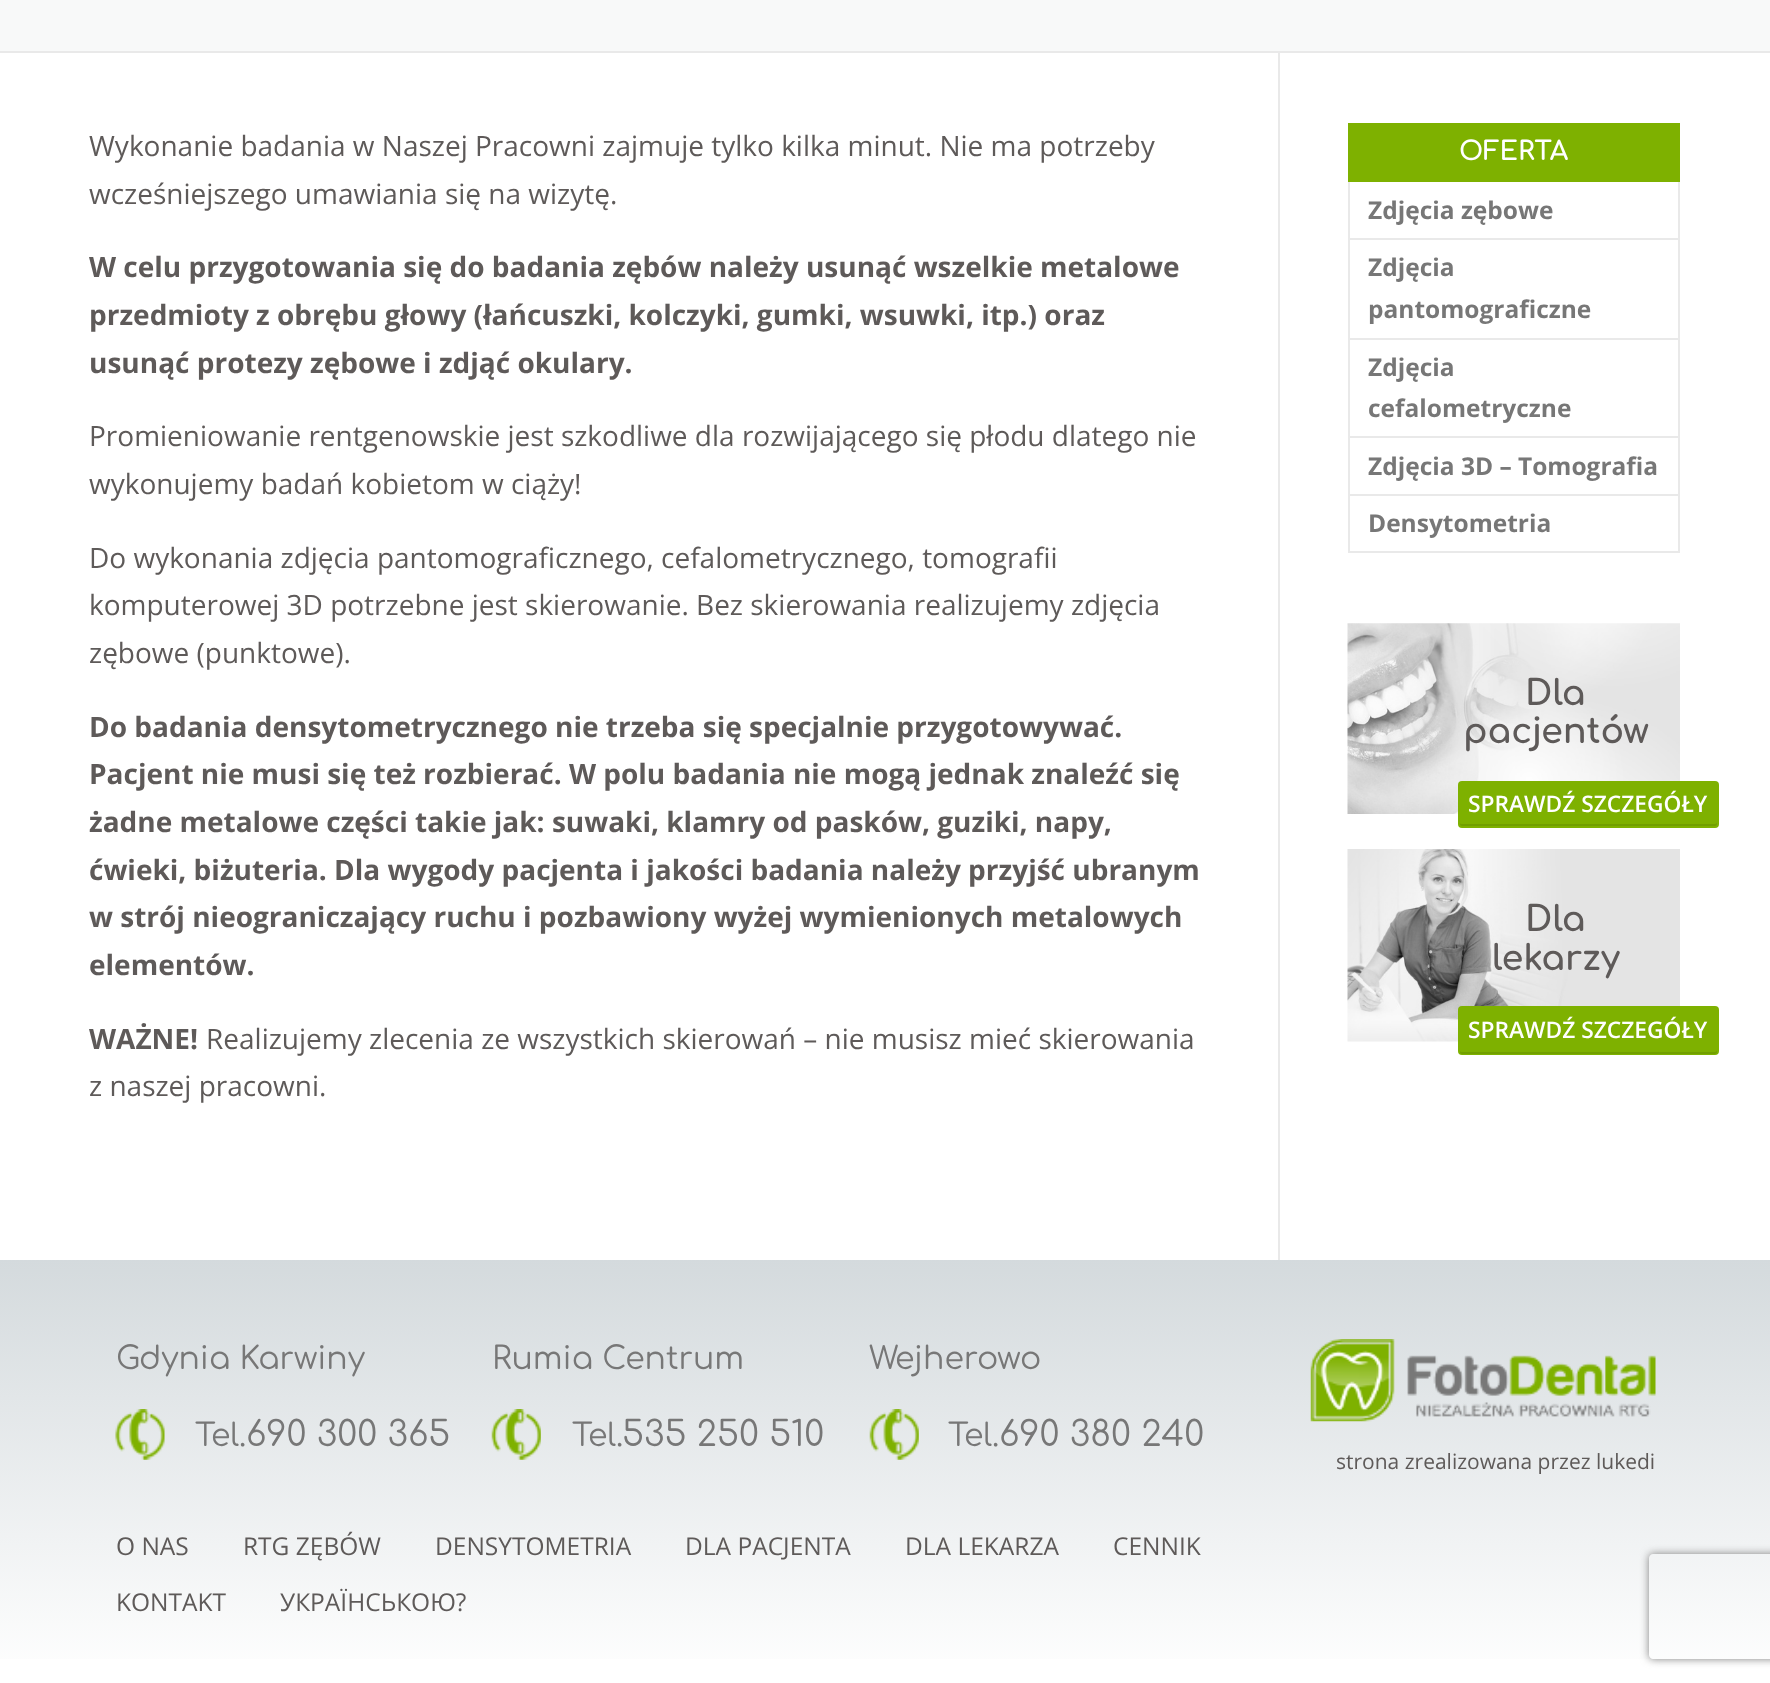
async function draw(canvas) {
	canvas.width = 1770;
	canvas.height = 1683;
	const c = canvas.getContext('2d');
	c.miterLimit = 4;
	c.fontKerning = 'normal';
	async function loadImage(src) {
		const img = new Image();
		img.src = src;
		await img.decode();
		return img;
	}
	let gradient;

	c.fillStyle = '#fff';
	c.fillRect(0, 0, 1770, 1683);
	for (const [x, y, w, h, color] of [
		[0, 0, 1770, 51, '#f8f9f9'],
		[0, 51, 1770, 2, '#e9e9e9'],
		[1278, 53, 2, 1207, '#e9e9e9'],
	]) {
		c.fillStyle = color;
		c.fillRect(x, y, w, h);
	}
	c.font = '28px Open Sans';
	c.fillStyle = '#5e5a59';
	c.fillText('Wykonanie badania w Naszej Pracowni zajmuje tylko kilka minut. Nie ma potrzeby', 89, 156);
	c.fillText('wcześniejszego umawiania się na wizytę.', 89, 204);
	c.font = 'bold 28px Open Sans';
	for (const [text, x, y] of [
		['W celu przygotowania się do badania zębów należy usunąć wszelkie metalowe', 89, 277],
		['przedmioty z obrębu głowy (łańcuszki, kolczyki, gumki, wsuwki, itp.) oraz', 89, 325],
		['usunąć protezy zębowe i zdjąć okulary.', 89, 373],
	]) {
		c.fillText(text, x, y);
	}
	c.font = '28px Open Sans';
	for (const [text, x, y] of [
		['Promieniowanie rentgenowskie jest szkodliwe dla rozwijającego się płodu dlatego nie', 89, 446],
		['wykonujemy badań kobietom w ciąży!', 89, 494],
		['Do wykonania zdjęcia pantomograficznego, cefalometrycznego, tomografii', 89, 568],
		['komputerowej 3D potrzebne jest skierowanie. Bez skierowania realizujemy zdjęcia', 89, 615],
		['zębowe (punktowe).', 89, 663],
	]) {
		c.fillText(text, x, y);
	}
	c.font = 'bold 28px Open Sans';
	for (const [text, x, y] of [
		['Do badania densytometrycznego nie trzeba się specjalnie przygotowywać.', 89, 737],
		['Pacjent nie musi się też rozbierać. W polu badania nie mogą jednak znaleźć się', 89, 784],
		['żadne metalowe części takie jak: suwaki, klamry od pasków, guziki, napy,', 89, 832],
		['ćwieki, biżuteria. Dla wygody pacjenta i jakości badania należy przyjść ubranym', 89, 880],
		['w strój nieograniczający ruchu i pozbawiony wyżej wymienionych metalowych', 89, 927],
		['elementów.', 89, 975],
		['WAŻNE!', 89, 1049],
	]) {
		c.fillText(text, x, y);
	}
	c.font = '28px Open Sans';
	c.fillText('Realizujemy zlecenia ze wszystkich skierowań – nie musisz mieć skierowania', 206, 1049);
	c.fillText('z naszej pracowni.', 89, 1096);
	c.fillStyle = '#7eb100';
	c.fillRect(1348, 123, 332, 59);
	c.font = 'bold 26.25px Comfortaa';
	c.fillStyle = '#fff';
	c.fillText('OFERTA', 1459, 160);
	for (const [x, y, w, h, color] of [
		[1678, 182, 2, 371, '#e9e9e9'],
		[1348, 182, 2, 371, '#e9e9e9'],
		[1349, 238, 329, 2, '#e9e9e9'],
	]) {
		c.fillStyle = color;
		c.fillRect(x, y, w, h);
	}
	c.font = 'bold 24.5px Open Sans';
	c.fillStyle = '#777';
	c.fillText('Zdjęcia zębowe', 1368, 219);
	c.fillStyle = '#e9e9e9';
	c.fillRect(1349, 338, 329, 2);
	c.fillStyle = '#777';
	c.fillText('Zdjęcia', 1368, 276);
	c.fillText('pantomograficzne', 1368, 318);
	c.fillStyle = '#e9e9e9';
	c.fillRect(1349, 436, 329, 2);
	c.fillStyle = '#777';
	c.fillText('Zdjęcia', 1368, 376);
	c.fillText('cefalometryczne', 1368, 417);
	c.fillStyle = '#e9e9e9';
	c.fillRect(1349, 494, 329, 2);
	c.fillStyle = '#777';
	c.fillText('Zdjęcia 3D – Tomografia', 1368, 475);
	c.fillStyle = '#e9e9e9';
	c.fillRect(1349, 551, 329, 2);
	c.fillStyle = '#777';
	c.fillText('Densytometria', 1368, 532);
	c.drawImage(await loadImage('img1.png'), 1347, 623, 333, 191);
	c.font = 'bold 35px Comfortaa';
	c.fillStyle = '#5e5a59';
	c.fillText('Dla', 1525, 705);
	c.fillText('pacjentów', 1463, 743);
	c.fillStyle = '#7eb100';
	c.beginPath();
	c.roundRect(1458, 781, 261, 47, 4);
	c.fill();
	c.fillStyle = '#719f00';
	c.beginPath();
	c.moveTo(1460, 822);
	c.lineTo(1460, 824);
	c.bezierCurveTo(1460, 825, 1461, 826, 1462, 826);
	c.lineTo(1715, 826);
	c.bezierCurveTo(1716, 826, 1717, 825, 1717, 824);
	c.lineTo(1717, 822);
	c.bezierCurveTo(1717, 823, 1716, 824, 1715, 824);
	c.lineTo(1461, 824);
	c.bezierCurveTo(1460, 824, 1460, 823, 1460, 822);
	c.closePath();
	c.fill();
	c.font = '600 22.75px Open Sans';
	c.fillStyle = '#fff';
	c.fillText('SPRAWDŹ SZCZEGÓŁY', 1468, 812);
	c.drawImage(await loadImage('img2.png'), 1347, 849, 333, 193);
	c.font = 'bold 35px Comfortaa';
	c.fillStyle = '#5e5a59';
	c.fillText('Dla', 1525, 931);
	c.fillText('lekarzy', 1492, 970);
	c.fillStyle = '#7eb100';
	c.beginPath();
	c.roundRect(1458, 1006, 261, 49, 4);
	c.fill();
	c.fillStyle = '#719f00';
	c.beginPath();
	c.moveTo(1460, 1050);
	c.lineTo(1460, 1052);
	c.bezierCurveTo(1460, 1053, 1461, 1054, 1462, 1054);
	c.lineTo(1715, 1054);
	c.bezierCurveTo(1716, 1054, 1717, 1053, 1717, 1052);
	c.lineTo(1717, 1050);
	c.bezierCurveTo(1717, 1051, 1716, 1052, 1715, 1052);
	c.lineTo(1461, 1052);
	c.bezierCurveTo(1460, 1052, 1460, 1051, 1460, 1050);
	c.closePath();
	c.fill();
	c.font = '600 22.75px Open Sans';
	c.fillStyle = '#fff';
	c.fillText('SPRAWDŹ SZCZEGÓŁY', 1468, 1038);
	gradient = c.createLinearGradient(886, 1260, 886, 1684);
	gradient.addColorStop(0, '#d4dadd');
	gradient.addColorStop(1, '#fff');
	c.fillStyle = gradient;
	c.fillRect(0, 1260, 1770, 399);
	c.font = '31.5px Comfortaa';
	c.fillStyle = '#777';
	c.fillText('Gdynia Karwiny', 116, 1369);
	c.drawImage(await loadImage('img3.png'), 115, 1409, 50, 51);
	c.fillText('Tel.', 195, 1446);
	c.font = '35px Comfortaa';
	c.fillText('690 300 365', 246, 1446);
	c.font = '31.5px Comfortaa';
	c.fillText('Rumia Centrum', 492, 1369);
	c.drawImage(await loadImage('img4.png'), 491, 1409, 50, 51);
	c.fillText('Tel.', 572, 1446);
	c.font = '35px Comfortaa';
	c.fillText('535 250 510', 622, 1446);
	c.font = '31.5px Comfortaa';
	c.fillText('Wejherowo', 869, 1369);
	c.drawImage(await loadImage('img4.png'), 869, 1409, 50, 51);
	c.fillText('Tel.', 948, 1446);
	c.font = '35px Comfortaa';
	c.fillText('690 380 240', 999, 1446);
	c.font = '24.5px Open Sans';
	c.fillStyle = '#5e5a59';
	for (const [text, x, y] of [
		['O NAS', 116, 1555],
		['RTG ZĘBÓW', 243, 1555],
		['DENSYTOMETRIA', 435, 1555],
		['DLA PACJENTA', 685, 1555],
		['DLA LEKARZA', 905, 1555],
		['CENNIK', 1113, 1555],
		['KONTAKT', 116, 1611],
		['УКРАЇНСЬКОЮ?', 280, 1611],
	]) {
		c.fillText(text, x, y);
	}
	c.drawImage(await loadImage('img5.png'), 1310, 1339, 346, 83);
	c.font = '21px Open Sans';
	c.fillText('strona zrealizowana przez lukedi', 1336, 1469);
	c.save();
	c.beginPath();
	c.moveTo(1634, 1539);
	c.lineTo(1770, 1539);
	c.lineTo(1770, 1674);
	c.lineTo(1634, 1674);
	c.closePath();
	c.moveTo(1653, 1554);
	c.lineTo(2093, 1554);
	c.bezierCurveTo(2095, 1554, 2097, 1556, 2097, 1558);
	c.lineTo(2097, 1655);
	c.bezierCurveTo(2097, 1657, 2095, 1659, 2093, 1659);
	c.lineTo(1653, 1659);
	c.bezierCurveTo(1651, 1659, 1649, 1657, 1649, 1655);
	c.lineTo(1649, 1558);
	c.bezierCurveTo(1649, 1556, 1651, 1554, 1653, 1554);
	c.closePath();
	c.clip('evenodd');
	c.fillStyle = '#808080';
	c.filter = 'blur(4.5px)';
	c.beginPath();
	c.roundRect(1649, 1554, 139, 105, 4);
	c.fill();
	c.filter = 'none';
	c.restore();
}

draw(document.querySelector('canvas'));
